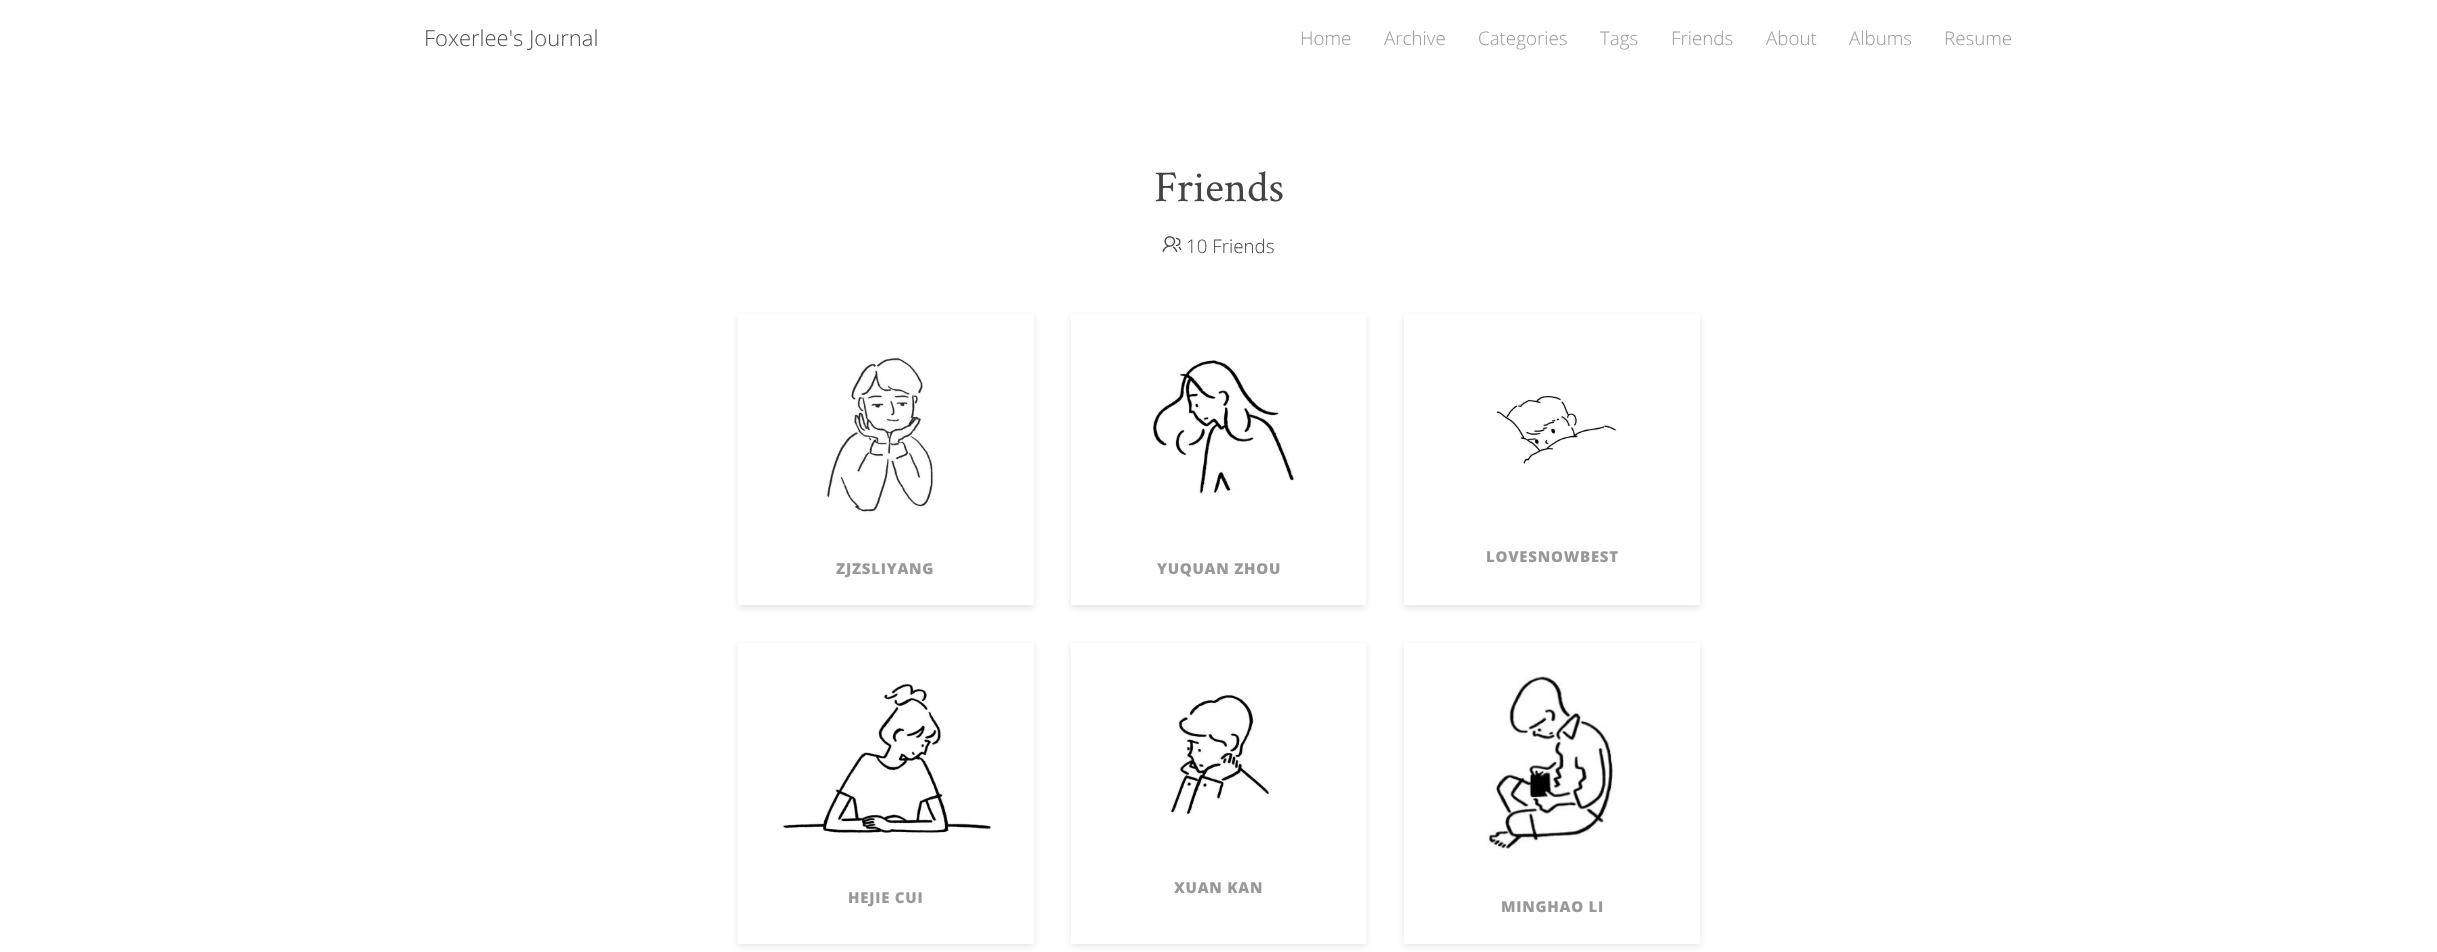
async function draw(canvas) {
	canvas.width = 2437;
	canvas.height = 952;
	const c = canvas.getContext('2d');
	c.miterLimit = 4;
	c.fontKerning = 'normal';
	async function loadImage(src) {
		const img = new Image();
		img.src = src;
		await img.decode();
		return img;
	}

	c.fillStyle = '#fff';
	c.fillRect(0, 0, 2437, 952);
	c.font = '300 22px Open Sans';
	c.fillStyle = '#4d4d4d';
	c.fillText('Foxerlee\'s Journal', 424, 46);
	c.font = '300 18.75px Open Sans';
	c.fillStyle = '#999';
	for (const [text, x, y] of [
		['Home', 1300, 45],
		['Archive', 1384, 45],
		['Categories', 1478, 45],
		['Tags', 1600, 45],
		['Friends', 1671, 45],
		['About', 1766, 45],
		['Albums', 1849, 45],
		['Resume', 1944, 45],
	]) {
		c.fillText(text, x, y);
	}
	c.font = '44px Crimson Text';
	c.fillStyle = '#444';
	c.fillText('Friends', 1154, 201);
	c.drawImage(await loadImage('img1.png'), 1162, 236, 20, 17);
	c.font = '300 18.75px Open Sans';
	c.fillText('10 Friends', 1186, 253);
	c.save();
	c.beginPath();
	c.moveTo(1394, 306);
	c.lineTo(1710, 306);
	c.lineTo(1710, 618);
	c.lineTo(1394, 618);
	c.closePath();
	c.moveTo(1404, 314);
	c.lineTo(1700, 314);
	c.lineTo(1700, 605);
	c.lineTo(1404, 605);
	c.closePath();
	c.clip('evenodd');
	c.fillStyle = '#0000001a';
	c.filter = 'blur(3px)';
	c.beginPath();
	c.rect(1404, 316, 296, 292);
	c.fill();
	c.filter = 'none';
	c.restore();
	c.drawImage(await loadImage('img2.png'), 1496, 395, 122, 69);
	c.letterSpacing = '0.75px';
	c.font = '800 15px Open Sans';
	c.fillStyle = '#999';
	c.fillText('LOVESNOWBEST', 1486, 562);
	c.fillStyle = '#0000001a';
	c.filter = 'blur(3px)';
	c.beginPath();
	c.rect(738, 316, 296, 292);
	c.fill();
	c.filter = 'none';
	c.fillStyle = '#fff';
	c.fillRect(738, 314, 296, 291);
	c.drawImage(await loadImage('img3.png'), 827, 357, 108, 156);
	c.fillStyle = '#999';
	c.fillText('ZJZSLIYANG', 836, 574);
	c.fillStyle = '#0000001a';
	c.filter = 'blur(3px)';
	c.beginPath();
	c.rect(1071, 316, 295, 292);
	c.fill();
	c.filter = 'none';
	c.fillStyle = '#fff';
	c.fillRect(1071, 314, 295, 291);
	c.drawImage(await loadImage('img4.png'), 1152, 360, 143, 134);
	c.fillStyle = '#999';
	c.fillText('YUQUAN ZHOU', 1157, 574);
	c.fillStyle = '#0000001a';
	c.filter = 'blur(3px)';
	c.beginPath();
	c.rect(1071, 645, 295, 301);
	c.fill();
	c.filter = 'none';
	c.fillStyle = '#fff';
	c.fillRect(1071, 643, 295, 301);
	c.drawImage(await loadImage('img5.png'), 1170, 694, 101, 122);
	c.fillStyle = '#999';
	c.fillText('XUAN KAN', 1174, 893);
	c.fillStyle = '#0000001a';
	c.filter = 'blur(3px)';
	c.beginPath();
	c.rect(738, 645, 296, 301);
	c.fill();
	c.filter = 'none';
	c.fillStyle = '#fff';
	c.fillRect(738, 643, 296, 301);
	c.drawImage(await loadImage('img6.png'), 782, 683, 210, 151);
	c.fillStyle = '#999';
	c.fillText('HEJIE CUI', 848, 903);
	c.fillStyle = '#0000001a';
	c.filter = 'blur(3px)';
	c.beginPath();
	c.rect(1404, 645, 296, 301);
	c.fill();
	c.filter = 'none';
	c.fillStyle = '#fff';
	c.fillRect(1404, 643, 296, 301);
	c.drawImage(await loadImage('img7.png'), 1486, 676, 128, 173);
	c.fillStyle = '#999';
	c.fillText('MINGHAO LI', 1501, 912);
}

draw(document.querySelector('canvas'));
